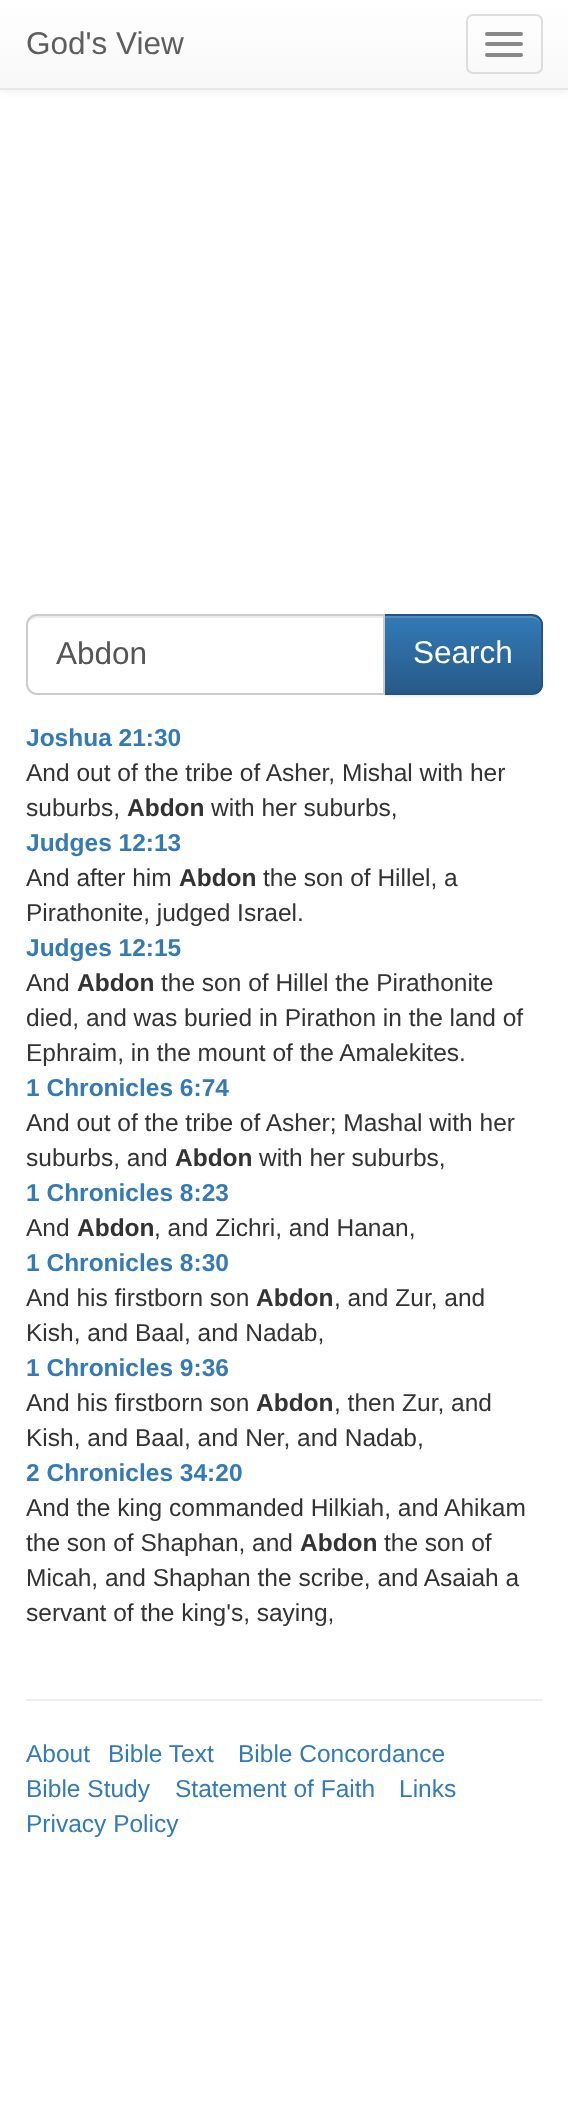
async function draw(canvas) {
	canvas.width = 568;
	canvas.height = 2115;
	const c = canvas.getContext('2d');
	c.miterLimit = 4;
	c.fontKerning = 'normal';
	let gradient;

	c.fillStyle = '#fff';
	c.fillRect(0, 0, 568, 2115);
	c.fillStyle = '#00000012';
	c.filter = 'blur(4.5px)';
	c.beginPath();
	c.rect(0, 2, 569, 89);
	c.fill();
	c.filter = 'none';
	gradient = c.createLinearGradient(284, 0, 284, 88);
	gradient.addColorStop(0, '#fff');
	gradient.addColorStop(1, '#f8f8f8');
	c.fillStyle = gradient;
	c.fillRect(0, 0, 568, 88);
	c.fillStyle = '#e7e7e7';
	c.fillRect(0, 88, 568, 2);
	c.font = '31.5px Liberation Sans';
	c.fillStyle = '#5e5e5e';
	c.fillText('God\'s View', 26, 54);
	c.beginPath();
	c.roundRect(467, 15, 75, 58, 6);
	c.strokeStyle = '#ddd';
	c.lineWidth = 2;
	c.stroke();
	c.fillStyle = '#888';
	c.beginPath();
	c.roundRect(485, 32, 38, 4, 2);
	c.fill();
	c.beginPath();
	c.roundRect(485, 42, 38, 4, 2);
	c.fill();
	c.beginPath();
	c.roundRect(485, 53, 38, 4, 2);
	c.fill();
	c.fillStyle = '#00000012';
	c.filter = 'blur(1px)';
	c.beginPath();
	c.roundRect(383, 616, 160, 81, 11);
	c.fill();
	c.filter = 'none';
	c.save();
	c.beginPath();
	c.roundRect(383, 614, 160, 81, [0, 11, 11, 0]);
	c.clip();
	gradient = c.createLinearGradient(463, 616, 463, 693);
	gradient.addColorStop(0, '#337ab7');
	gradient.addColorStop(1, '#265a88');
	c.fillStyle = gradient;
	c.fillRect(385, 616, 158, 77);
	c.restore();
	c.fillStyle = '#ffffff26';
	c.beginPath();
	c.moveTo(385, 618);
	c.lineTo(532, 618);
	c.bezierCurveTo(537, 618, 541, 622, 541, 626);
	c.lineTo(541, 625);
	c.bezierCurveTo(541, 620, 537, 616, 532, 616);
	c.lineTo(385, 616);
	c.closePath();
	c.fill();
	c.beginPath();
	c.roundRect(384, 615, 158, 79, [0, 10, 10, 0]);
	c.strokeStyle = '#245580';
	c.stroke();
	c.fillStyle = '#fff';
	c.beginPath();
	c.roundRect(26, 614, 359, 81, [11, 0, 0, 11]);
	c.fill();
	c.fillStyle = '#ececec';
	c.beginPath();
	c.moveTo(37, 618);
	c.lineTo(383, 618);
	c.lineTo(383, 616);
	c.lineTo(35, 616);
	c.bezierCurveTo(30, 617, 28, 621, 28, 626);
	c.bezierCurveTo(28, 622, 32, 618, 37, 618);
	c.closePath();
	c.fill();
	c.beginPath();
	c.roundRect(27, 615, 357, 79, [10, 0, 0, 10]);
	c.strokeStyle = '#ccc';
	c.stroke();
	c.fillStyle = '#555';
	c.fillText('Abdon', 56, 664);
	c.fillStyle = '#fff';
	c.fillText('Search', 413, 663);
	c.font = 'bold 24.5px Liberation Sans';
	c.fillStyle = '#337ab7';
	c.fillText('Joshua 21:30', 26, 746);
	c.font = '24.5px Liberation Sans';
	c.fillStyle = '#333';
	c.fillText('And out of the tribe of Asher, Mishal with her', 26, 781);
	c.fillText('suburbs,', 26, 816);
	c.font = 'bold 24.5px Liberation Sans';
	c.fillText('Abdon', 127, 816);
	c.font = '24.5px Liberation Sans';
	c.fillText('with her suburbs,', 211, 816);
	c.font = 'bold 24.5px Liberation Sans';
	c.fillStyle = '#337ab7';
	c.fillText('Judges 12:13', 26, 851);
	c.font = '24.5px Liberation Sans';
	c.fillStyle = '#333';
	c.fillText('And after him', 26, 886);
	c.font = 'bold 24.5px Liberation Sans';
	c.fillText('Abdon', 179, 886);
	c.font = '24.5px Liberation Sans';
	c.fillText('the son of Hillel, a', 263, 886);
	c.fillText('Pirathonite, judged Israel.', 26, 921);
	c.font = 'bold 24.5px Liberation Sans';
	c.fillStyle = '#337ab7';
	c.fillText('Judges 12:15', 26, 956);
	c.font = '24.5px Liberation Sans';
	c.fillStyle = '#333';
	c.fillText('And', 26, 991);
	c.font = 'bold 24.5px Liberation Sans';
	c.fillText('Abdon', 77, 991);
	c.font = '24.5px Liberation Sans';
	for (const [text, x, y] of [
		['the son of Hillel the Pirathonite', 161, 991],
		['died, and was buried in Pirathon in the land of', 26, 1026],
		['Ephraim, in the mount of the Amalekites.', 26, 1061],
	]) {
		c.fillText(text, x, y);
	}
	c.font = 'bold 24.5px Liberation Sans';
	c.fillStyle = '#337ab7';
	c.fillText('1 Chronicles 6:74', 26, 1096);
	c.font = '24.5px Liberation Sans';
	c.fillStyle = '#333';
	c.fillText('And out of the tribe of Asher; Mashal with her', 26, 1131);
	c.fillText('suburbs, and', 26, 1166);
	c.font = 'bold 24.5px Liberation Sans';
	c.fillText('Abdon', 175, 1166);
	c.font = '24.5px Liberation Sans';
	c.fillText('with her suburbs,', 259, 1166);
	c.font = 'bold 24.5px Liberation Sans';
	c.fillStyle = '#337ab7';
	c.fillText('1 Chronicles 8:23', 26, 1201);
	c.font = '24.5px Liberation Sans';
	c.fillStyle = '#333';
	c.fillText('And', 26, 1236);
	c.font = 'bold 24.5px Liberation Sans';
	c.fillText('Abdon', 77, 1236);
	c.font = '24.5px Liberation Sans';
	c.fillText(', and Zichri, and Hanan,', 154, 1236);
	c.font = 'bold 24.5px Liberation Sans';
	c.fillStyle = '#337ab7';
	c.fillText('1 Chronicles 8:30', 26, 1271);
	c.font = '24.5px Liberation Sans';
	c.fillStyle = '#333';
	c.fillText('And his firstborn son', 26, 1306);
	c.font = 'bold 24.5px Liberation Sans';
	c.fillText('Abdon', 256, 1306);
	c.font = '24.5px Liberation Sans';
	c.fillText(', and Zur, and', 334, 1306);
	c.fillText('Kish, and Baal, and Nadab,', 26, 1341);
	c.font = 'bold 24.5px Liberation Sans';
	c.fillStyle = '#337ab7';
	c.fillText('1 Chronicles 9:36', 26, 1376);
	c.font = '24.5px Liberation Sans';
	c.fillStyle = '#333';
	c.fillText('And his firstborn son', 26, 1411);
	c.font = 'bold 24.5px Liberation Sans';
	c.fillText('Abdon', 256, 1411);
	c.font = '24.5px Liberation Sans';
	c.fillText(', then Zur, and', 334, 1411);
	c.fillText('Kish, and Baal, and Ner, and Nadab,', 26, 1446);
	c.font = 'bold 24.5px Liberation Sans';
	c.fillStyle = '#337ab7';
	c.fillText('2 Chronicles 34:20', 26, 1481);
	c.font = '24.5px Liberation Sans';
	c.fillStyle = '#333';
	c.fillText('And the king commanded Hilkiah, and Ahikam', 26, 1516);
	c.fillText('the son of Shaphan, and', 26, 1551);
	c.font = 'bold 24.5px Liberation Sans';
	c.fillText('Abdon', 300, 1551);
	c.font = '24.5px Liberation Sans';
	for (const [text, x, y] of [
		['the son of', 384, 1551],
		['Micah, and Shaphan the scribe, and Asaiah a', 26, 1586],
		['servant of the king\'s, saying,', 26, 1621],
	]) {
		c.fillText(text, x, y);
	}
	c.fillStyle = '#eee';
	c.fillRect(26, 1699, 517, 2);
	c.fillStyle = '#337ab7';
	for (const [text, x, y] of [
		['About', 26, 1762],
		['Bible Text', 108, 1762],
		['Bible Concordance', 238, 1762],
		['Bible Study', 26, 1797],
		['Statement of Faith', 175, 1797],
		['Links', 399, 1797],
		['Privacy Policy', 26, 1832],
	]) {
		c.fillText(text, x, y);
	}
}

draw(document.querySelector('canvas'));
